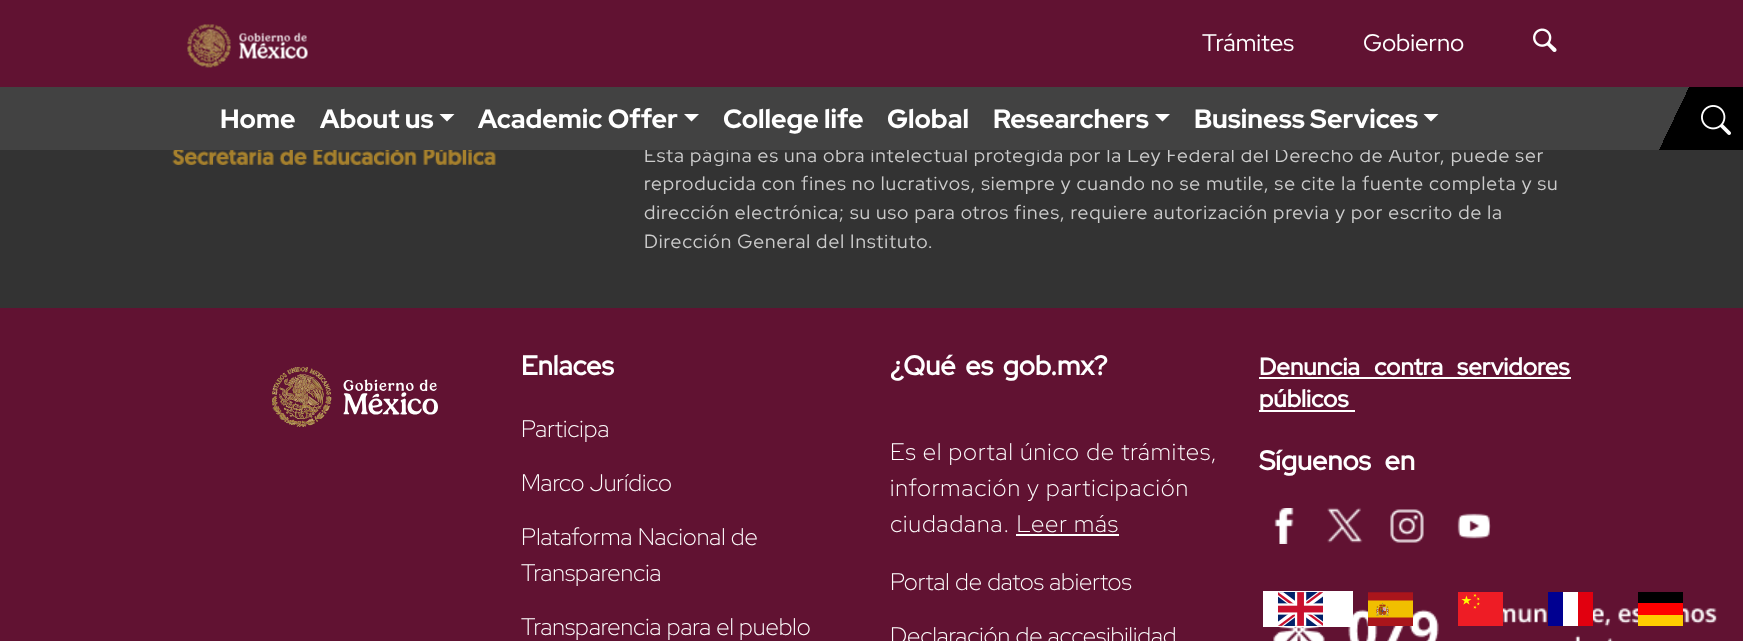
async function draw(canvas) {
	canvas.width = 1743;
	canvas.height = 641;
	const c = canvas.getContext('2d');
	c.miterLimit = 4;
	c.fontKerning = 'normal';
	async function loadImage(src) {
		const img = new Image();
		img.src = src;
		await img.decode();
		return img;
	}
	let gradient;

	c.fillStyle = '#333';
	c.fillRect(0, 0, 1743, 641);
	c.fillStyle = '#611232';
	c.fillRect(0, 0, 1743, 87);
	c.drawImage(await loadImage('img1.png'), 187, 24, 121, 44);
	c.font = '24px Red Hat Display';
	c.fillStyle = '#fff';
	c.fillText('Trámites', 1202, 51);
	c.fillText('Gobierno', 1363, 51);
	c.drawImage(await loadImage('img2.png'), 1533, 28, 24, 24);
	c.letterSpacing = '0.95px';
	c.font = '19.2px Red Hat Display';
	c.fillStyle = '#ccc';
	c.fillText('Esta página es una obra intelectual protegida por la Ley Federal del Derecho de Autor, puede ser', 644, 162);
	c.fillStyle = '#424242';
	c.fillRect(0, 87, 1659, 63);
	c.letterSpacing = '0px';
	c.font = '800 26.5px Red Hat Display';
	c.fillStyle = '#fff';
	c.fillText('Home', 220, 128);
	c.fillText('About us', 320, 128);
	c.beginPath();
	c.moveTo(439.5, 114);
	c.lineTo(454.5, 114);
	c.lineTo(447, 121.5);
	c.closePath();
	c.fill();
	c.fillText('Academic Offer', 478, 128);
	c.beginPath();
	c.moveTo(684, 114);
	c.lineTo(699, 114);
	c.lineTo(691.5, 121.5);
	c.closePath();
	c.fill();
	for (const [text, x, y] of [
		['College life', 723, 128],
		['Global', 887, 128],
		['Researchers', 993, 128],
	]) {
		c.fillText(text, x, y);
	}
	c.beginPath();
	c.moveTo(1155, 114);
	c.lineTo(1170, 114);
	c.lineTo(1162.5, 121.5);
	c.closePath();
	c.fill();
	c.fillText('Business Services', 1194, 128);
	c.beginPath();
	c.moveTo(1423.5, 114);
	c.lineTo(1438.5, 114);
	c.lineTo(1431, 121.5);
	c.closePath();
	c.fill();
	c.fillStyle = '#000';
	c.fillRect(1689, 87, 54, 63);
	gradient = c.createLinearGradient(1650, 107, 1698, 130);
	gradient.addColorStop(0.5, '#424242');
	gradient.addColorStop(0.5, '#000');
	c.fillStyle = gradient;
	c.fillRect(1659, 87, 30, 63);
	c.drawImage(await loadImage('img3.png'), 1701, 105, 30, 30);
	c.drawImage(await loadImage('img4.png'), 172, 150, 324, 15);
	c.letterSpacing = '0.95px';
	c.font = '19.2px Red Hat Display';
	c.fillStyle = '#ccc';
	for (const [text, x, y] of [
		['reproducida con fines no lucrativos, siempre y cuando no se mutile, se cite la fuente completa y su', 644, 190],
		['dirección electrónica; su uso para otros fines, requiere autorización previa y por escrito de la', 644, 219],
		['Dirección General del Instituto.', 644, 248],
	]) {
		c.fillText(text, x, y);
	}
	c.fillStyle = '#611232';
	c.fillRect(0, 308, 1743, 333);
	c.drawImage(await loadImage('img5.png'), 272, 366, 166, 61);
	c.letterSpacing = '0px';
	c.font = 'bold 27px Red Hat Display';
	c.fillStyle = '#fff';
	c.fillText('Enlaces', 521, 375);
	c.font = '300 24px Red Hat Display';
	for (const [text, x, y] of [
		['Participa', 521, 437],
		['Marco Jurídico', 521, 491],
		['Plataforma Nacional de', 521, 545],
		['Transparencia', 521, 581],
		['Transparencia para el pueblo', 521, 635],
	]) {
		c.fillText(text, x, y);
	}
	c.wordSpacing = '4px';
	c.font = 'bold 27px Red Hat Display';
	c.fillText('¿Qué es gob.mx?', 890, 375);
	c.letterSpacing = '0.95px';
	c.wordSpacing = '0px';
	c.font = '300 24px Red Hat Display';
	for (const [text, x, y] of [
		['Es el portal único de trámites,', 890, 460],
		['información y participación', 890, 496],
		['ciudadana. Leer más', 890, 532],
	]) {
		c.fillText(text, x, y);
	}
	c.fillRect(1016, 534, 103, 2);
	c.letterSpacing = '0px';
	c.fillText('Portal de datos abiertos', 890, 590);
	c.fillText('Declaración de accesibilidad', 890, 644);
	c.wordSpacing = '9px';
	c.font = 'bold 24px Red Hat Display';
	c.fillText('Denuncia contra servidores', 1259, 375);
	c.fillRect(1259, 377, 312, 2);
	c.fillRect(1259, 410, 96, 2);
	c.wordSpacing = '0px';
	c.fillText('públicos', 1259, 407);
	c.wordSpacing = '8px';
	c.font = 'bold 27px Red Hat Display';
	c.fillText('Síguenos en', 1259, 470);
	c.drawImage(await loadImage('img6.png'), 1274, 508, 20, 36);
	c.drawImage(await loadImage('img7.png'), 1327, 507, 36, 36);
	c.drawImage(await loadImage('img8.png'), 1390, 509, 34, 34);
	c.drawImage(await loadImage('img9.png'), 1457, 513, 34, 26);
	c.drawImage(await loadImage('img10.png'), 1273, 608, 444, 33);
	c.fillRect(1263, 591, 90, 36);
	c.drawImage(await loadImage('img11.png'), 1278, 592, 45, 34);
	c.drawImage(await loadImage('img12.png'), 1368, 592, 45, 34);
	c.drawImage(await loadImage('img13.png'), 1458, 592, 45, 34);
	for (const [x, y, w, h, color] of [
		[1563, 592, 15, 34, '#fff'],
		[1548, 592, 15, 34, '#000091'],
		[1578, 592, 15, 34, '#e1000f'],
		[1638, 615, 45, 11, '#fc0'],
		[1638, 592, 45, 11, '#000001'],
		[1638, 603, 45, 12, '#f00'],
	]) {
		c.fillStyle = color;
		c.fillRect(x, y, w, h);
	}
}

draw(document.querySelector('canvas'));
